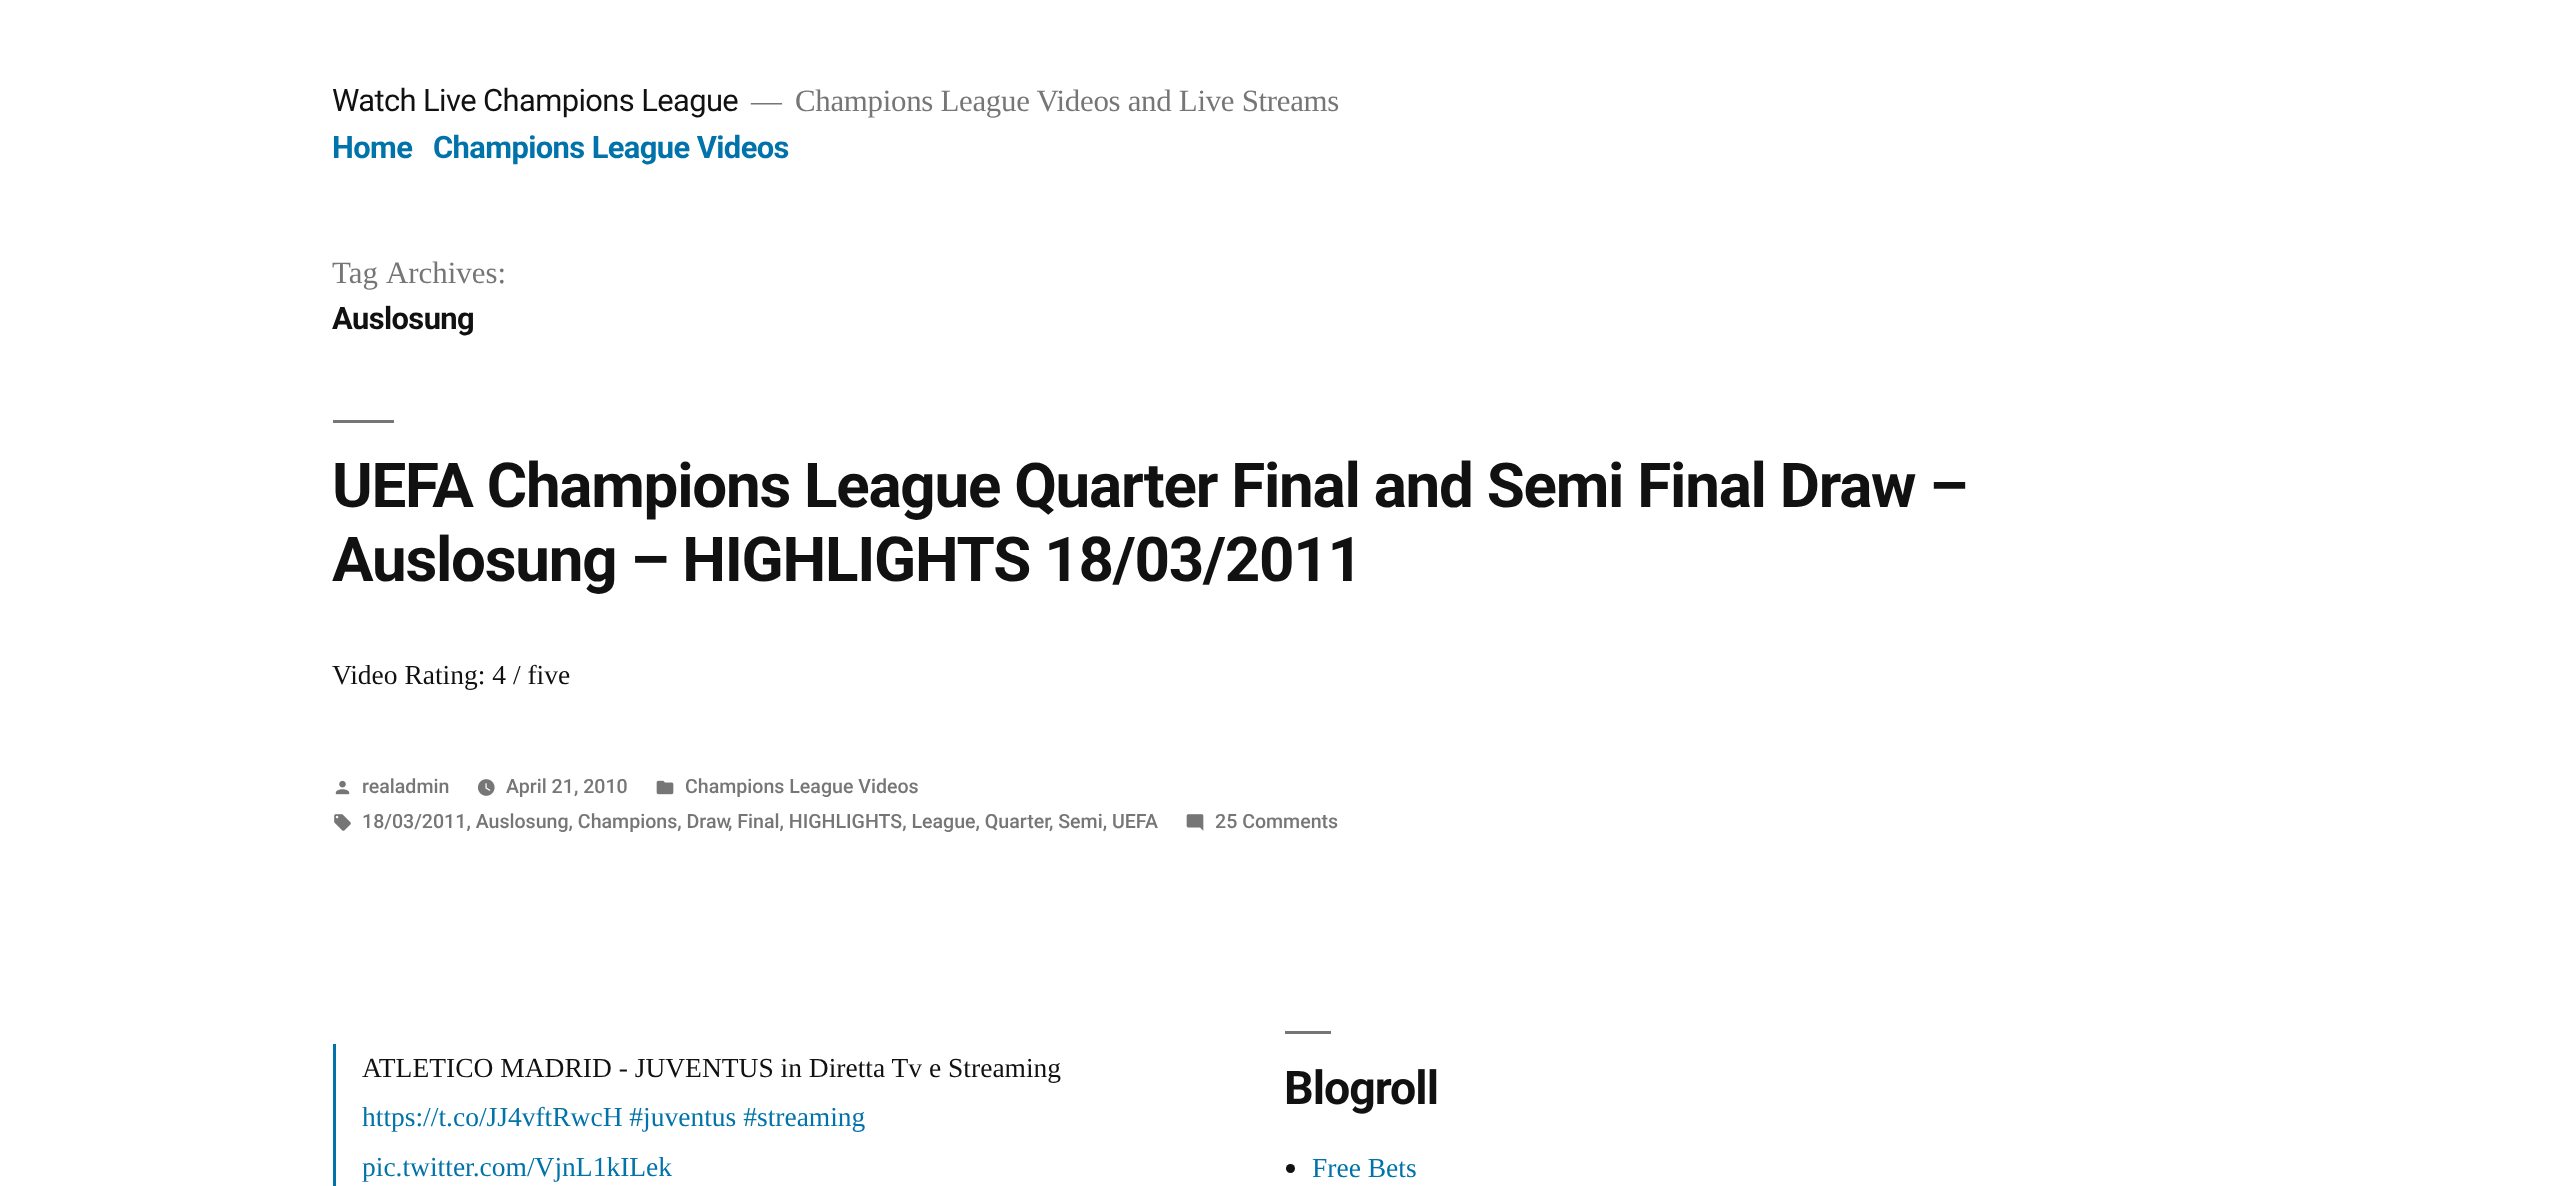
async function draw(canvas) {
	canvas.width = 2568;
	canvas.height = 1186;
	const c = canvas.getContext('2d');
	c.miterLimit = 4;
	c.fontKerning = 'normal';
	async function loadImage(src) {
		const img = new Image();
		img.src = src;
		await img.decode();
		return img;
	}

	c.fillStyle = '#fff';
	c.fillRect(0, 0, 2568, 1186);
	c.letterSpacing = '-0.6px';
	c.font = '30.9px Roboto';
	c.fillStyle = '#111';
	c.fillText('Watch Live Champions League', 332, 111);
	c.letterSpacing = '-0.3px';
	c.font = '30.9px Liberation Serif';
	c.fillStyle = '#767676';
	c.fillText('—', 751, 111);
	c.fillText('Champions League Videos and Live Streams', 795, 111);
	c.letterSpacing = '-0.6px';
	c.font = 'bold 30.9px Roboto';
	c.fillStyle = '#0073aa';
	c.fillText('Home', 332, 158);
	c.fillText('Champions League Videos', 433, 158);
	c.letterSpacing = '0px';
	c.wordSpacing = '2px';
	c.font = '30.9px Liberation Serif';
	c.fillStyle = '#767676';
	c.fillText('Tag Archives:', 332, 283);
	c.letterSpacing = '-0.6px';
	c.wordSpacing = '0px';
	c.font = 'bold 30.9px Roboto';
	c.fillStyle = '#111';
	c.fillText('Auslosung', 332, 329);
	c.fillStyle = '#767676';
	c.fillRect(333, 420, 61, 3);
	c.letterSpacing = '-1.25px';
	c.font = 'bold 61.9px Roboto';
	c.fillStyle = '#111';
	c.fillText('UEFA Champions League Quarter Final and Semi Final Draw –', 332, 507);
	c.fillText('Auslosung – HIGHLIGHTS 18/03/2011', 332, 581);
	c.letterSpacing = '0px';
	c.font = '27.5px Liberation Serif';
	c.fillText('Video Rating: 4 / five', 332, 684);
	c.drawImage(await loadImage('img1.png'), 335, 780, 15, 15);
	c.font = '500 19.6px Roboto';
	c.fillStyle = '#767676';
	c.fillText('realadmin', 362, 793);
	c.drawImage(await loadImage('img2.png'), 477, 779, 18, 17);
	c.fillText('April 21, 2010', 506, 793);
	c.drawImage(await loadImage('img3.png'), 656, 780, 18, 15);
	c.fillText('Champions League Videos', 685, 793);
	c.drawImage(await loadImage('img4.png'), 334, 814, 17, 17);
	for (const [text, x, y] of [
		['18/03/2011, Auslosung, Champions, Draw', 362, 828],
		[', Final, HIGHLIGHTS, League, Quarter', 728, 828],
		[', Semi, UEFA', 1049, 828],
	]) {
		c.fillText(text, x, y);
	}
	c.drawImage(await loadImage('img5.png'), 1186, 814, 18, 17);
	c.fillText('25 Comments', 1215, 828);
	c.fillStyle = '#0073aa';
	c.fillRect(333, 1044, 3, 142);
	c.font = '27.5px Liberation Serif';
	c.fillStyle = '#111';
	c.fillText('ATLETICO MADRID - JUVENTUS in Diretta Tv e Streaming', 362, 1077);
	c.fillStyle = '#0073aa';
	c.fillText('https://t.co/JJ4vftRwcH #juventus #streaming', 362, 1126);
	c.fillText('pic.twitter.com/VjnL1kILek', 362, 1176);
	c.fillStyle = '#767676';
	c.fillRect(1285, 1031, 46, 3);
	c.letterSpacing = '-1px';
	c.font = 'bold 46.5px Roboto';
	c.fillStyle = '#111';
	c.fillText('Blogroll', 1284, 1104);
	c.beginPath();
	c.arc(1290.5, 1168.5, 4.5, 0, 2 * Math.PI);
	c.fill();
	c.letterSpacing = '0px';
	c.font = '27.5px Liberation Serif';
	c.fillStyle = '#0073aa';
	c.fillText('Free Bets', 1312, 1177);
}

draw(document.querySelector('canvas'));
